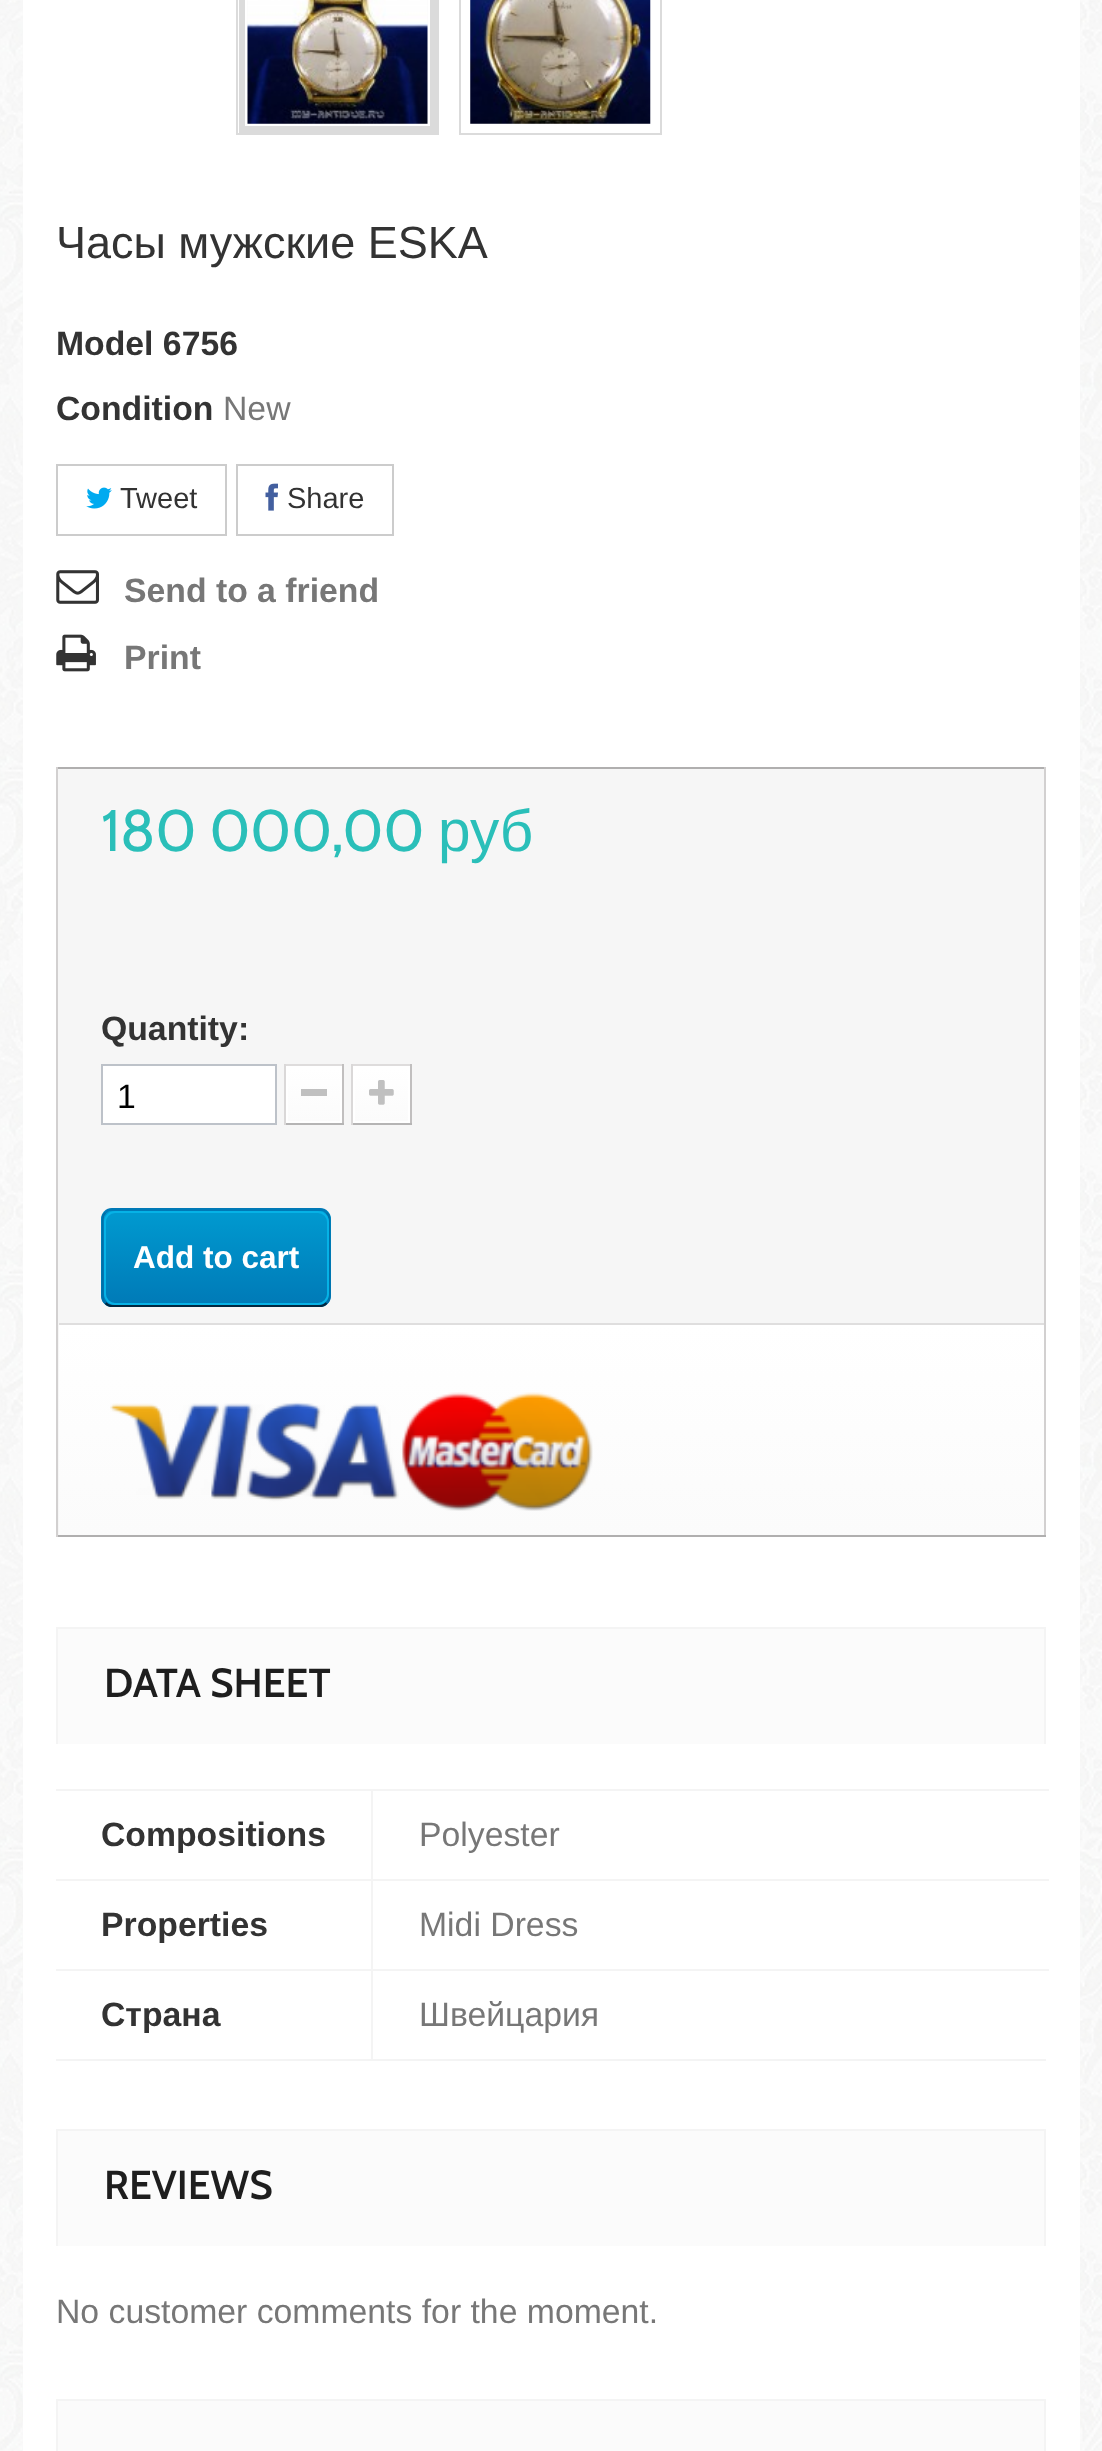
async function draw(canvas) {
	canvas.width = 1102;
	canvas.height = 2451;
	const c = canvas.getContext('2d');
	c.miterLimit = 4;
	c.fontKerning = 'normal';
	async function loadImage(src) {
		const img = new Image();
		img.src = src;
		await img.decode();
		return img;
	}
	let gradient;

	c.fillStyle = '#fff';
	c.fillRect(0, 0, 1102, 2451);
	c.drawImage(await loadImage('img1.png'), 0, 0, 1102, 2451);
	c.fillRect(23, 0, 1057, 2451);
	c.strokeStyle = '#dbdbdb';
	c.lineWidth = 2;
	c.strokeRect(237, -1, 201, 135);
	c.fillStyle = '#fbfbfb';
	c.fillRect(247, 0, 181, 124);
	c.lineWidth = 7;
	c.strokeRect(242.5, -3.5, 191, 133);
	c.strokeStyle = '#fff';
	c.lineWidth = 2;
	c.strokeRect(246, -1, 183, 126);
	c.drawImage(await loadImage('img2.png'), 247, 0, 181, 124);
	c.strokeStyle = '#dbdbdb';
	c.strokeRect(460, -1, 201, 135);
	c.fillRect(470, 0, 181, 124);
	c.drawImage(await loadImage('img3.png'), 470, 0, 181, 124);
	c.font = '45px Liberation Sans';
	c.fillStyle = '#333';
	c.fillText('Часы мужские ESKA', 56, 258);
	c.font = 'bold 33.75px Liberation Sans';
	c.fillText('Model 6756', 56, 355);
	c.fillText('Condition', 56, 420);
	c.font = '33.75px Liberation Sans';
	c.fillStyle = '#777';
	c.fillText('New', 223, 420);
	c.strokeStyle = '#ccc';
	c.strokeRect(57, 465, 169, 70);
	c.drawImage(await loadImage('img4.png'), 86, 487, 26, 22);
	c.font = '29px Liberation Sans';
	c.fillStyle = '#333';
	c.fillText('Tweet', 120, 508);
	c.strokeRect(237, 465, 156, 70);
	c.drawImage(await loadImage('img5.png'), 265, 483, 13, 28);
	c.fillText('Share', 287, 508);
	c.drawImage(await loadImage('img6.png'), 56, 570, 43, 34);
	c.font = 'bold 33.75px Liberation Sans';
	c.fillStyle = '#777';
	c.fillText('Send to a friend', 124, 602);
	c.drawImage(await loadImage('img7.png'), 56, 634, 40, 38);
	c.fillText('Print', 124, 669);
	for (const [x, y, w, h, color] of [
		[58, 769, 986, 766, '#f6f6f6'],
		[56, 767, 990, 2, '#b0afaf'],
		[1044, 767, 2, 770, '#d2d0d0'],
		[56, 1535, 990, 2, '#b0afaf'],
		[56, 767, 2, 770, '#d2d0d0'],
	]) {
		c.fillStyle = color;
		c.fillRect(x, y, w, h);
	}
	c.font = '58.5px Cabin';
	c.fillStyle = '#2abfb9';
	c.fillText('180 000,00', 101, 851);
	c.font = '58.5px Liberation Sans';
	c.fillText('руб', 438, 851);
	c.font = 'bold 33.75px Liberation Sans';
	c.fillStyle = '#333';
	c.fillText('Quantity:', 101, 1040);
	c.fillStyle = '#fff';
	c.beginPath();
	c.rect(102, 1065, 174, 59);
	c.fill();
	c.strokeStyle = '#bdc2c9';
	c.stroke();
	c.font = '33.75px Liberation Sans';
	c.fillStyle = '#000';
	c.fillText('1', 117, 1108);
	for (const [x, y, w, h, color] of [
		[286, 1066, 56, 1, '#fff'],
		[284, 1064, 60, 2, '#dedcdc'],
		[342, 1064, 2, 61, '#c1bfbf'],
		[284, 1123, 60, 2, '#b5b4b4'],
		[284, 1064, 2, 61, '#dad8d8'],
	]) {
		c.fillStyle = color;
		c.fillRect(x, y, w, h);
	}
	gradient = c.createLinearGradient(314, 1069, 314, 1121);
	gradient.addColorStop(0, '#fff');
	gradient.addColorStop(1, '#fbfbfb');
	c.fillStyle = gradient;
	c.fillRect(288, 1069, 52, 52);
	c.strokeStyle = '#fff';
	c.strokeRect(287, 1068, 54, 54);
	for (const [x, y, w, h, color] of [
		[301, 1089, 26, 7, '#c0c0c0'],
		[353, 1066, 57, 1, '#fff'],
		[351, 1064, 61, 2, '#dedcdc'],
		[410, 1064, 2, 61, '#c1bfbf'],
		[351, 1123, 61, 2, '#b5b4b4'],
		[351, 1064, 2, 61, '#dad8d8'],
	]) {
		c.fillStyle = color;
		c.fillRect(x, y, w, h);
	}
	gradient = c.createLinearGradient(381, 1069, 381, 1121);
	gradient.addColorStop(0, '#fff');
	gradient.addColorStop(1, '#fbfbfb');
	c.fillStyle = gradient;
	c.fillRect(355, 1069, 53, 52);
	c.strokeRect(354, 1068, 55, 54);
	c.drawImage(await loadImage('img8.png'), 369, 1080, 25, 25);
	c.save();
	c.beginPath();
	c.roundRect(101, 1208, 230, 99, 11);
	c.clip();
	gradient = c.createLinearGradient(216, 1116, 216, 1211);
	gradient.addColorStop(0, '#009ad0');
	gradient.addColorStop(1, '#007ab7');
	c.fillStyle = gradient;
	c.fillRect(101, 1208, 230, 3);
	gradient = c.createLinearGradient(216, 1211, 216, 1305);
	gradient.addColorStop(0, '#009ad0');
	gradient.addColorStop(1, '#007ab7');
	c.fillStyle = gradient;
	c.fillRect(101, 1211, 230, 94);
	gradient = c.createLinearGradient(216, 1305, 216, 1400);
	gradient.addColorStop(0, '#009ad0');
	gradient.addColorStop(1, '#007ab7');
	c.fillStyle = gradient;
	c.fillRect(101, 1305, 230, 2);
	c.restore();
	c.beginPath();
	c.moveTo(105.5, 1212.5);
	c.bezierCurveTo(107, 1210.5, 110, 1209.5, 112.5, 1209.5);
	c.lineTo(319.5, 1209.5);
	c.bezierCurveTo(322, 1209.5, 325, 1210.5, 326.5, 1212.5);
	c.strokeStyle = '#0079b6';
	c.lineWidth = 2.2;
	c.stroke();
	c.beginPath();
	c.moveTo(326.5, 1212.5);
	c.bezierCurveTo(328.5, 1214, 329.5, 1217, 329.5, 1219.5);
	c.lineTo(329.5, 1296);
	c.bezierCurveTo(329.5, 1298.5, 328.5, 1301.5, 326.5, 1303);
	c.strokeStyle = '#006fa8';
	c.stroke();
	c.beginPath();
	c.moveTo(326.5, 1303);
	c.bezierCurveTo(325, 1305, 322, 1306, 319.5, 1306);
	c.lineTo(112.5, 1306);
	c.bezierCurveTo(110, 1306, 107, 1305, 105.5, 1303);
	c.strokeStyle = '#012740';
	c.stroke();
	c.beginPath();
	c.moveTo(105.5, 1303);
	c.bezierCurveTo(103.5, 1301.5, 102.5, 1298.5, 102.5, 1296);
	c.lineTo(102.5, 1219.5);
	c.bezierCurveTo(102.5, 1217, 103.5, 1214, 105.5, 1212.5);
	c.strokeStyle = '#006fa8';
	c.stroke();
	c.beginPath();
	c.roundRect(105, 1212, 223, 92, 10);
	c.strokeStyle = '#06b2e6';
	c.lineWidth = 2;
	c.stroke();
	c.font = 'bold 31.5px Liberation Sans';
	c.fillStyle = '#fff';
	c.fillText('Add to cart', 133, 1268);
	gradient = c.createLinearGradient(551, 1325, 551, 1535);
	gradient.addColorStop(0, '#fff');
	gradient.addColorStop(1, '#fbfbfb');
	c.fillStyle = gradient;
	c.fillRect(59, 1325, 985, 210);
	c.fillStyle = '#dfdede';
	c.fillRect(59, 1323, 985, 2);
	c.drawImage(await loadImage('img9.png'), 110, 1392, 483, 119);
	for (const [x, y, w, h, color] of [
		[58, 1629, 986, 115, '#fbfbfb'],
		[56, 1627, 990, 2, '#f4f4f4'],
		[1044, 1627, 2, 117, '#f4f4f4'],
		[56, 1627, 2, 117, '#f4f4f4'],
	]) {
		c.fillStyle = color;
		c.fillRect(x, y, w, h);
	}
	c.font = '600 40.5px Cabin';
	c.fillStyle = '#1e1e1e';
	c.fillText('DATA SHEET', 104, 1697);
	c.fillStyle = '#f4f4f4';
	c.fillRect(56, 2059, 990, 2);
	c.fillRect(56, 1789, 993, 2);
	c.font = 'bold 33.75px Liberation Sans';
	c.fillStyle = '#333';
	c.fillText('Compositions', 101, 1846);
	c.font = '33.75px Liberation Sans';
	c.fillStyle = '#777';
	c.fillText('Polyester', 419, 1846);
	c.fillStyle = '#f4f4f4';
	c.fillRect(56, 1879, 993, 2);
	c.font = 'bold 33.75px Liberation Sans';
	c.fillStyle = '#333';
	c.fillText('Properties', 101, 1936);
	c.font = '33.75px Liberation Sans';
	c.fillStyle = '#777';
	c.fillText('Midi Dress', 419, 1936);
	c.fillStyle = '#f4f4f4';
	c.fillRect(56, 1969, 993, 2);
	c.fillRect(371, 1789, 2, 272);
	c.font = 'bold 33.75px Liberation Sans';
	c.fillStyle = '#333';
	c.fillText('Страна', 101, 2026);
	c.font = '33.75px Liberation Sans';
	c.fillStyle = '#777';
	c.fillText('Швейцария', 419, 2026);
	for (const [x, y, w, h, color] of [
		[58, 2131, 986, 115, '#fbfbfb'],
		[56, 2129, 990, 2, '#f4f4f4'],
		[1044, 2129, 2, 117, '#f4f4f4'],
		[56, 2129, 2, 117, '#f4f4f4'],
	]) {
		c.fillStyle = color;
		c.fillRect(x, y, w, h);
	}
	c.font = '600 40.5px Cabin';
	c.fillStyle = '#1e1e1e';
	c.fillText('REVIEWS', 104, 2199);
	c.font = '33.75px Liberation Sans';
	c.fillStyle = '#777';
	c.fillText('No customer comments for the moment.', 56, 2323);
	for (const [x, y, w, h, color] of [
		[58, 2401, 986, 50, '#fbfbfb'],
		[56, 2399, 990, 2, '#f4f4f4'],
		[1044, 2399, 2, 52, '#f4f4f4'],
		[56, 2399, 2, 52, '#f4f4f4'],
	]) {
		c.fillStyle = color;
		c.fillRect(x, y, w, h);
	}
}

draw(document.querySelector('canvas'));
